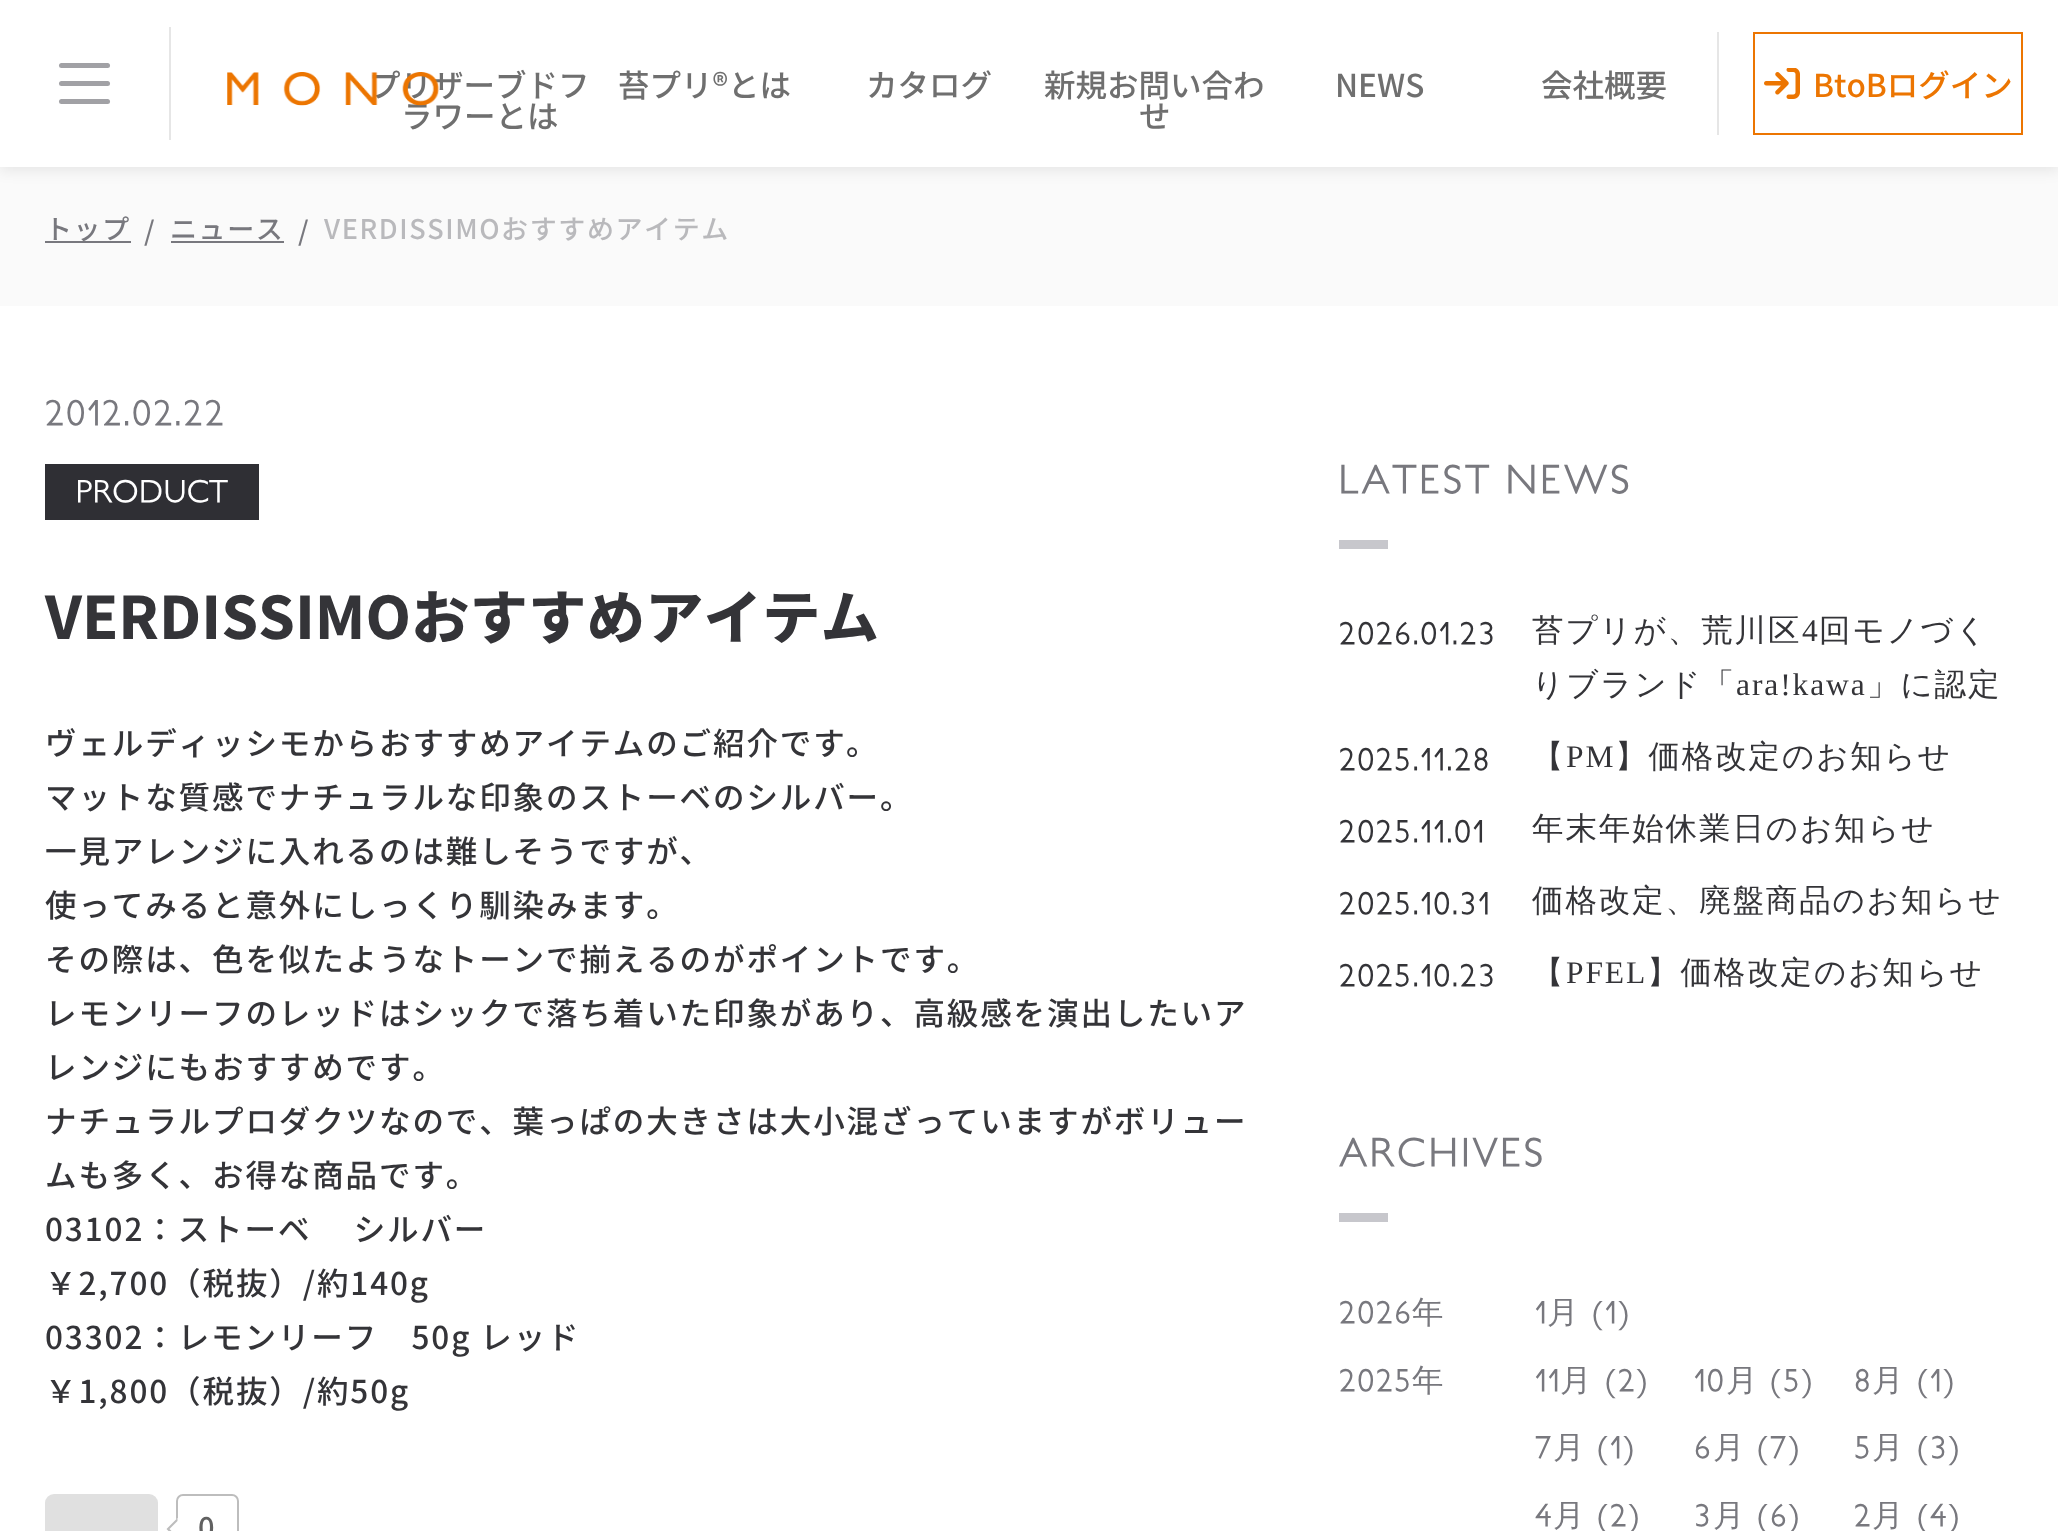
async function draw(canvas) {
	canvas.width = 2058;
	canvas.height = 1531;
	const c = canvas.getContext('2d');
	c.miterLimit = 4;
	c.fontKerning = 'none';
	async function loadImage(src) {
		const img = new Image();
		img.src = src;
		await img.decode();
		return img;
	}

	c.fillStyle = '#fff';
	c.fillRect(0, 0, 2058, 1531);
	c.fillStyle = '#fafafa';
	c.fillRect(0, 167, 2058, 139);
	c.fillStyle = '#00000014';
	c.filter = 'blur(7px)';
	c.beginPath();
	c.rect(0, 5, 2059, 166);
	c.fill();
	c.filter = 'none';
	c.fillStyle = '#fff';
	c.fillRect(0, 0, 2058, 167);
	c.fillStyle = '#e6e6e6';
	c.fillRect(169, 27, 2, 113);
	c.fillStyle = '#a1a1a5';
	c.beginPath();
	c.roundRect(59, 63, 51, 5, 2.5);
	c.fill();
	c.beginPath();
	c.roundRect(59, 81, 51, 5, 2.5);
	c.fill();
	c.beginPath();
	c.roundRect(59, 99, 51, 5, 2.5);
	c.fill();
	c.font = '500 31.5px Noto Sans JP';
	c.fillStyle = '#6f6f6f';
	c.fillText('プリザーブドフ', 369, 97);
	c.fillText('ラワーとは', 401, 128);
	c.drawImage(await loadImage('img1.png'), 227, 72, 212, 34);
	for (const [text, x, y] of [
		['苔プリ®とは', 618, 97],
		['カタログ', 866, 97],
		['新規お問い合わ', 1044, 97],
		['せ', 1139, 128],
		['NEWS', 1335, 97],
		['会社概要', 1541, 97],
	]) {
		c.fillText(text, x, y);
	}
	c.fillStyle = '#e6e6e6';
	c.fillRect(1717, 32, 2, 103);
	c.strokeStyle = '#ec7501';
	c.lineWidth = 2;
	c.strokeRect(1754, 33, 268, 101);
	c.drawImage(await loadImage('img2.png'), 1764, 68, 36, 31);
	c.fillStyle = '#ec7501';
	c.fillText('BtoBログイン', 1813, 97);
	c.fillStyle = '#78787e';
	c.fillRect(45, 241, 86, 2);
	c.letterSpacing = '1.6px';
	c.font = '500 27px Noto Sans JP';
	for (const [text, x, y] of [
		['トップ', 45, 239],
		['/', 144, 241],
		['ニュース', 170, 239],
	]) {
		c.fillText(text, x, y);
	}
	c.fillRect(171, 241, 113, 2);
	c.fillText('/', 298, 241);
	c.fillStyle = '#b9b9bc';
	c.fillText('VERDISSIMOおすすめアイテム', 324, 239);
	c.letterSpacing = '2.25px';
	c.font = '36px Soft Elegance';
	c.fillStyle = '#78787e';
	c.fillText('2012.02.22', 45, 425);
	c.fillStyle = '#2f2f34';
	c.fillRect(45, 464, 214, 56);
	c.letterSpacing = '0px';
	c.font = '31.5px Soft Elegance';
	c.fillStyle = '#fff';
	c.fillText('PRODUCT', 76, 502);
	c.font = '800 58.5px Noto Sans JP';
	c.fillStyle = '#343438';
	c.fillText('VERDISSIMOおすすめアイテム', 45, 639);
	c.letterSpacing = '1.9px';
	c.font = '500 31.5px Noto Sans JP';
	for (const [text, x, y] of [
		['ヴェルディッシモからおすすめアイテムのご紹介です', 45, 755],
		['。', 846, 755],
		['マットな質感でナチュラルな印象のストーベのシルバー。', 45, 809],
		['一見アレンジに入れるのは難しそうですが、', 45, 863],
		['使ってみると意外にしっくり馴染みます。', 45, 917],
		['その際は、色を似たようなトーンで揃えるのがポイントです。', 45, 971],
		['レモンリーフのレッドはシックで落ち着いた印象があり、高級感を演出したいア', 45, 1025],
		['レンジにもおすすめです。', 45, 1079],
		['ナチュラルプロダクツなので、葉っぱの大きさは大小混ざっていますがボリュー', 45, 1133],
		['ムも多く、お得な商品です。', 45, 1187],
		['03102：ストーベ　 シルバー', 45, 1241],
		['￥2,700（税抜）/約140g', 45, 1295],
		['03302：レモンリーフ　50g レッド', 45, 1349],
		['￥1,800（税抜）/約50g', 45, 1403],
	]) {
		c.fillText(text, x, y);
	}
	c.fillStyle = '#e0e0e0';
	c.beginPath();
	c.roundRect(45, 1494, 113, 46, 9);
	c.fill();
	c.beginPath();
	c.roundRect(177, 1495, 61, 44, 6);
	c.strokeStyle = '#bdbdbd';
	c.stroke();
	c.fillStyle = '#fff';
	c.beginPath();
	c.moveTo(177.5, 1518);
	c.lineTo(189, 1529);
	c.lineTo(177.5, 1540.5);
	c.lineTo(166.5, 1529);
	c.closePath();
	c.fill();
	c.fillStyle = '#bdbdbd';
	c.beginPath();
	c.moveTo(177.5, 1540.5);
	c.lineTo(166.5, 1529);
	c.lineTo(169.5, 1529);
	c.lineTo(177.5, 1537);
	c.closePath();
	c.moveTo(166.5, 1529);
	c.lineTo(177.5, 1518);
	c.lineTo(177.5, 1521);
	c.lineTo(169.5, 1529);
	c.closePath();
	c.fill();
	c.font = '500 29px Noto Sans JP';
	c.fillStyle = '#616161';
	c.fillText('0', 198, 1538);
	c.letterSpacing = '2.5px';
	c.font = '40.5px Soft Elegance';
	c.fillStyle = '#78787e';
	c.fillText('LATEST', 1339, 493);
	c.fillText('NEWS', 1505, 493);
	c.fillStyle = '#c7c7cc';
	c.fillRect(1339, 540, 49, 9);
	c.letterSpacing = '1.9px';
	c.font = '31.5px Soft Elegance';
	c.fillStyle = '#343438';
	c.fillText('2026.01.23', 1339, 644);
	c.font = '500 31.5px WenQuanYi Zen Hei';
	c.fillText('苔プリが、荒川区', 1532, 641);
	c.font = '31.5px Liberation Serif';
	c.fillText('4', 1802, 641);
	c.font = '500 31.5px WenQuanYi Zen Hei';
	c.fillText('回モノづく', 1819, 641);
	c.fillText('りブランド「', 1532, 695);
	c.font = '31.5px Liberation Serif';
	c.fillText('ara!kawa', 1736, 695);
	c.font = '500 31.5px WenQuanYi Zen Hei';
	c.fillText('」に認定', 1867, 695);
	c.font = '31.5px Soft Elegance';
	c.fillText('2025.11.28', 1339, 770);
	c.font = '500 31.5px WenQuanYi Zen Hei';
	c.fillText('【', 1532, 767);
	c.font = '31.5px Liberation Serif';
	c.fillText('PM', 1566, 767);
	c.font = '500 31.5px WenQuanYi Zen Hei';
	c.fillText('】価格改定のお知らせ', 1615, 767);
	c.font = '31.5px Soft Elegance';
	c.fillText('2025.11.01', 1339, 842);
	c.font = '500 31.5px WenQuanYi Zen Hei';
	c.fillText('年末年始休業日のお知らせ', 1532, 839);
	c.font = '31.5px Soft Elegance';
	c.fillText('2025.10.31', 1339, 914);
	c.font = '500 31.5px WenQuanYi Zen Hei';
	c.fillText('価格改定、廃盤商品のお知らせ', 1532, 911);
	c.font = '31.5px Soft Elegance';
	c.fillText('2025.10.23', 1339, 986);
	c.font = '500 31.5px WenQuanYi Zen Hei';
	c.fillText('【', 1532, 983);
	c.font = '31.5px Liberation Serif';
	c.fillText('PFEL', 1566, 983);
	c.font = '500 31.5px WenQuanYi Zen Hei';
	c.fillText('】価格改定のお知らせ', 1647, 983);
	c.letterSpacing = '2.5px';
	c.font = '40.5px Soft Elegance';
	c.fillStyle = '#78787e';
	c.fillText('ARCHIVES', 1339, 1166);
	c.fillStyle = '#c7c7cc';
	c.fillRect(1339, 1213, 49, 9);
	c.letterSpacing = '1.9px';
	c.font = '31.5px Soft Elegance';
	c.fillStyle = '#78787e';
	c.fillText('2026', 1339, 1323);
	c.font = '500 31.5px WenQuanYi Zen Hei';
	c.fillText('年', 1412, 1323);
	c.font = '31.5px Soft Elegance';
	c.fillText('1', 1535, 1323);
	c.font = '500 31.5px WenQuanYi Zen Hei';
	c.fillText('月', 1547, 1323);
	c.font = '31.5px Soft Elegance';
	c.fillText('(1)', 1592, 1323);
	c.fillText('2025', 1339, 1391);
	c.font = '500 31.5px WenQuanYi Zen Hei';
	c.fillText('年', 1412, 1391);
	c.font = '31.5px Soft Elegance';
	c.fillText('11', 1535, 1391);
	c.font = '500 31.5px WenQuanYi Zen Hei';
	c.fillText('月', 1560, 1391);
	c.font = '31.5px Soft Elegance';
	c.fillText('(2)', 1605, 1391);
	c.fillText('10', 1694, 1391);
	c.font = '500 31.5px WenQuanYi Zen Hei';
	c.fillText('月', 1726, 1391);
	c.font = '31.5px Soft Elegance';
	c.fillText('(5)', 1770, 1391);
	c.fillText('8', 1854, 1391);
	c.font = '500 31.5px WenQuanYi Zen Hei';
	c.fillText('月', 1872, 1391);
	c.font = '31.5px Soft Elegance';
	c.fillText('(1)', 1917, 1391);
	c.fillText('7', 1535, 1458);
	c.font = '500 31.5px WenQuanYi Zen Hei';
	c.fillText('月', 1553, 1458);
	c.font = '31.5px Soft Elegance';
	c.fillText('(1)', 1597, 1458);
	c.fillText('6', 1694, 1458);
	c.font = '500 31.5px WenQuanYi Zen Hei';
	c.fillText('月', 1713, 1458);
	c.font = '31.5px Soft Elegance';
	c.fillText('(7)', 1757, 1458);
	c.fillText('5', 1854, 1458);
	c.font = '500 31.5px WenQuanYi Zen Hei';
	c.fillText('月', 1872, 1458);
	c.font = '31.5px Soft Elegance';
	c.fillText('(3)', 1917, 1458);
	c.fillText('4', 1535, 1526);
	c.font = '500 31.5px WenQuanYi Zen Hei';
	c.fillText('月', 1553, 1526);
	c.font = '31.5px Soft Elegance';
	c.fillText('(2)', 1597, 1526);
	c.fillText('3', 1694, 1526);
	c.font = '500 31.5px WenQuanYi Zen Hei';
	c.fillText('月', 1713, 1526);
	c.font = '31.5px Soft Elegance';
	c.fillText('(6)', 1757, 1526);
	c.fillText('2', 1854, 1526);
	c.font = '500 31.5px WenQuanYi Zen Hei';
	c.fillText('月', 1872, 1526);
	c.font = '31.5px Soft Elegance';
	c.fillText('(4)', 1917, 1526);
}

draw(document.querySelector('canvas'));
